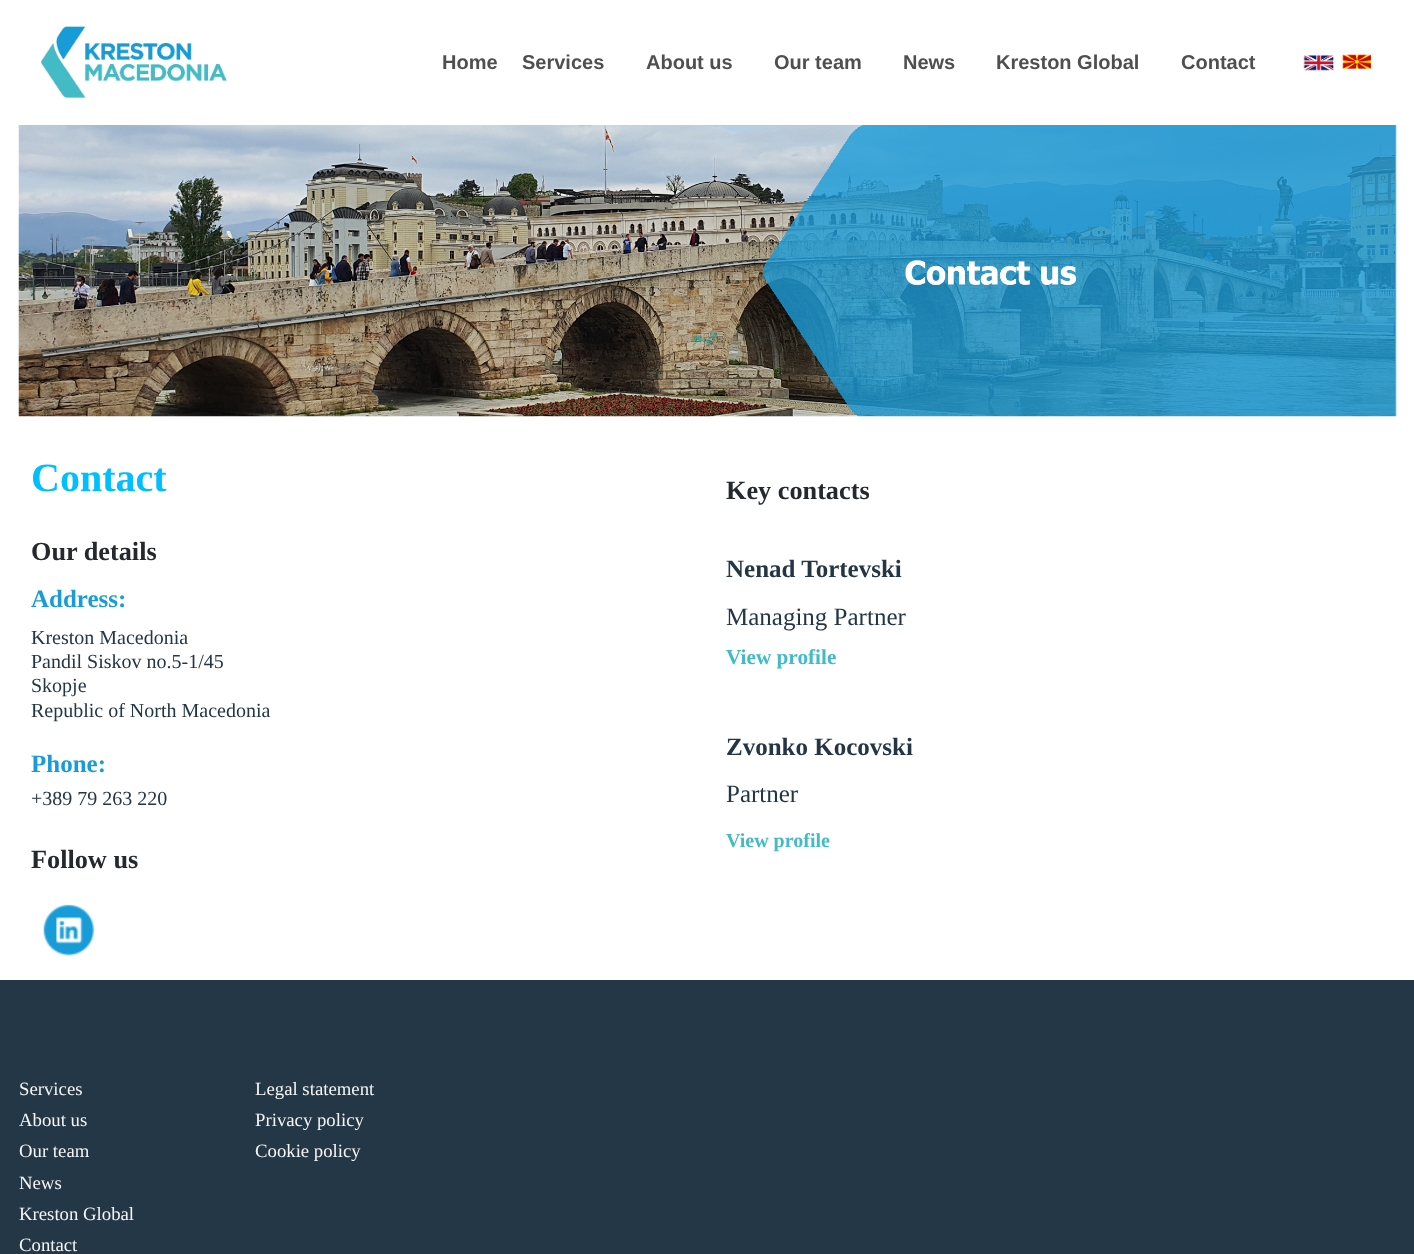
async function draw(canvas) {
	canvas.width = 1414;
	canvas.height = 1254;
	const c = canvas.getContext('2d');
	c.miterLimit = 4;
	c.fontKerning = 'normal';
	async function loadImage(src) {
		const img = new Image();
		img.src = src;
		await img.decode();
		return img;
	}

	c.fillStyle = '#fff';
	c.fillRect(0, 0, 1414, 1254);
	c.drawImage(await loadImage('img1.png'), 40, 25, 187, 75);
	c.font = 'bold 20px Liberation Sans';
	c.fillStyle = '#4f4f4f';
	for (const [text, x, y] of [
		['Home', 442, 69],
		['Services', 522, 69],
		['About us', 646, 69],
		['Our team', 774, 69],
		['News', 903, 69],
		['Kreston Global', 996, 69],
		['Contact', 1181, 69],
	]) {
		c.fillText(text, x, y);
	}
	c.drawImage(await loadImage('img2.png'), 1303, 51, 31, 20);
	c.drawImage(await loadImage('img3.png'), 1342, 54, 29, 15);
	c.drawImage(await loadImage('img4.png'), 18, 125, 1379, 292);
	c.font = 'bold 40px Liberation Serif';
	c.fillStyle = '#00bfff';
	c.fillText('Contact', 31, 491);
	c.font = 'bold 26.25px Liberation Serif';
	c.fillStyle = '#24292e';
	c.fillText('Our details', 31, 560);
	c.font = 'bold 25px Liberation Serif';
	c.fillStyle = '#189cd8';
	c.fillText('Address:', 31, 607);
	c.font = '20px Liberation Serif';
	c.fillStyle = '#243646';
	for (const [text, x, y] of [
		['Kreston Macedonia', 31, 644],
		['Pandil Siskov no.5-1/45', 31, 668],
		['Skopje', 31, 692],
		['Republic of North Macedonia', 31, 717],
	]) {
		c.fillText(text, x, y);
	}
	c.font = 'bold 25px Liberation Serif';
	c.fillStyle = '#189cd8';
	c.fillText('Phone:', 31, 772);
	c.font = '20px Liberation Serif';
	c.fillStyle = '#243646';
	c.fillText('+389 79 263 220', 31, 805);
	c.font = 'bold 26.25px Liberation Serif';
	c.fillStyle = '#24292e';
	c.fillText('Follow us', 31, 868);
	c.drawImage(await loadImage('img5.png'), 43, 904, 52, 53);
	c.fillText('Key contacts', 726, 499);
	c.font = 'bold 25px Liberation Serif';
	c.fillStyle = '#243646';
	c.fillText('Nenad Tortevski', 726, 577);
	c.font = '25px Liberation Serif';
	c.fillText('Managing Partner', 726, 625);
	c.font = 'bold 21.25px Liberation Serif';
	c.fillStyle = '#43bbc7';
	c.fillText('View profile', 726, 664);
	c.font = 'bold 25px Liberation Serif';
	c.fillStyle = '#243646';
	c.fillText('Zvonko Kocovski', 726, 755);
	c.font = '25px Liberation Serif';
	c.fillText('Partner', 726, 802);
	c.font = 'bold 20px Liberation Serif';
	c.fillStyle = '#43bbc7';
	c.fillText('View profile', 726, 847);
	c.fillStyle = '#243746';
	c.fillRect(0, 980, 1414, 274);
	c.font = '18.75px Liberation Serif';
	c.fillStyle = '#f5f5f5';
	for (const [text, x, y] of [
		['Services', 19, 1095],
		['About us', 19, 1126],
		['Our team', 19, 1157],
		['News', 19, 1189],
		['Kreston Global', 19, 1220],
		['Contact', 19, 1251],
		['Legal statement', 255, 1095],
		['Privacy policy', 255, 1126],
		['Cookie policy', 255, 1157],
	]) {
		c.fillText(text, x, y);
	}
}

draw(document.querySelector('canvas'));
